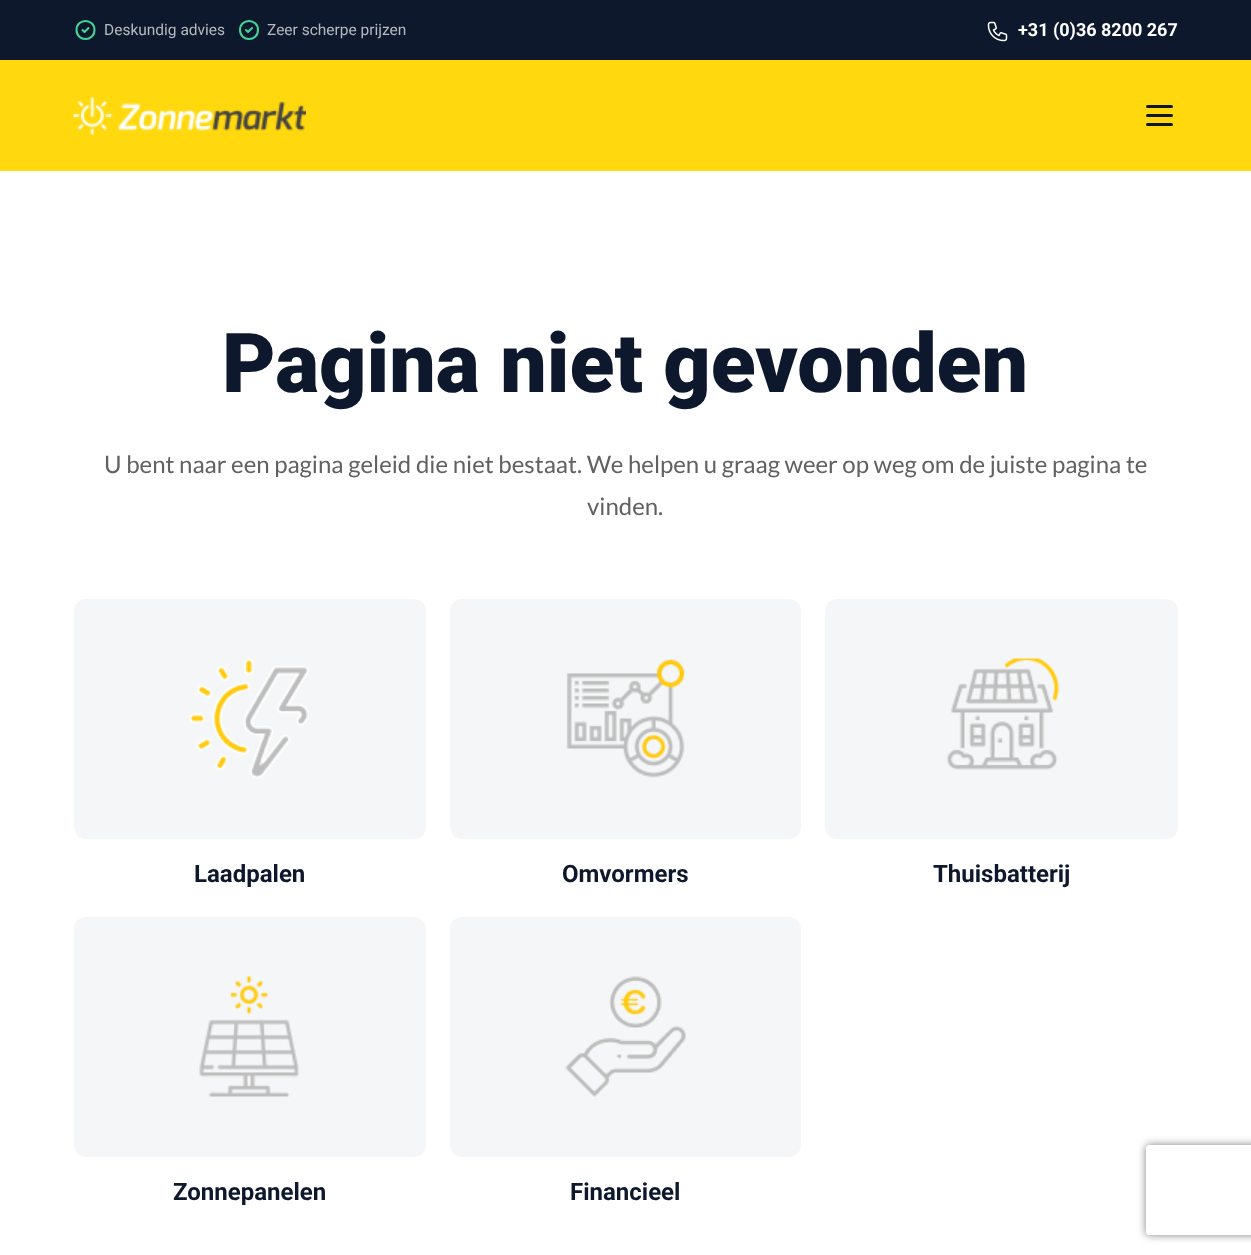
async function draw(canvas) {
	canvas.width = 1251;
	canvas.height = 1255;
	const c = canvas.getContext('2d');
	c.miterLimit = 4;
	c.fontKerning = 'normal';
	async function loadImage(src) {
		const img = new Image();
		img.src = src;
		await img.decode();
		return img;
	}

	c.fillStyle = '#fff';
	c.fillRect(0, 0, 1251, 1255);
	c.fillStyle = '#0d182d';
	c.fillRect(0, 0, 1251, 60);
	c.beginPath();
	c.moveTo(82.5, 30);
	c.lineTo(84.5, 32);
	c.lineTo(88.5, 28);
	c.moveTo(94.5, 30);
	c.bezierCurveTo(94.5, 42, 76.5, 42, 76.5, 30);
	c.bezierCurveTo(76.5, 18, 94.5, 18, 94.5, 30);
	c.closePath();
	c.strokeStyle = '#43d799';
	c.lineWidth = 2;
	c.lineCap = 'round';
	c.lineJoin = 'round';
	c.stroke();
	c.font = '15.5px Roboto';
	c.fillStyle = '#b6bac0';
	c.fillText('Deskundig advies', 104, 35);
	c.beginPath();
	c.moveTo(246, 30);
	c.lineTo(248, 32);
	c.lineTo(252, 28);
	c.moveTo(258, 30);
	c.bezierCurveTo(258, 42, 240, 42, 240, 30);
	c.bezierCurveTo(240, 18, 258, 18, 258, 30);
	c.closePath();
	c.stroke();
	c.fillText('Zeer scherpe prijzen', 267, 35);
	c.drawImage(await loadImage('img1.png'), 987, 21, 21, 21);
	c.font = 'bold 18px Roboto';
	c.fillStyle = '#fff';
	c.fillText('+31 (0)36 8200 267', 1018, 36);
	c.fillStyle = '#ffd80d';
	c.fillRect(0, 60, 1251, 111);
	c.drawImage(await loadImage('img2.png'), 73, 97, 233, 38);
	c.beginPath();
	c.moveTo(1147.5, 106.5);
	c.lineTo(1171.5, 106.5);
	c.moveTo(1147.5, 115.5);
	c.lineTo(1171.5, 115.5);
	c.moveTo(1147.5, 124.5);
	c.lineTo(1171.5, 124.5);
	c.strokeStyle = '#0d182d';
	c.lineWidth = 3;
	c.stroke();
	c.font = '900 82.5px Roboto';
	c.fillStyle = '#0d182d';
	c.fillText('Pagina niet gevonden', 222, 392);
	c.font = '24px Lato';
	c.fillStyle = '#616161';
	c.fillText('U bent naar een pagina geleid die niet bestaat. We helpen u graag weer op weg om de juiste pagina te', 104, 473);
	c.fillText('vinden.', 587, 515);
	c.fillStyle = '#f5f6f7';
	c.beginPath();
	c.roundRect(74, 599, 352, 240, 12);
	c.fill();
	c.drawImage(await loadImage('img3.png'), 189, 658, 120, 121);
	c.font = 'bold 24px Roboto';
	c.fillStyle = '#0d182d';
	c.fillText('Laadpalen', 194, 882);
	c.fillStyle = '#f5f6f7';
	c.beginPath();
	c.roundRect(450, 599, 351, 240, 12);
	c.fill();
	c.drawImage(await loadImage('img4.png'), 566, 659, 119, 119);
	c.fillStyle = '#0d182d';
	c.fillText('Omvormers', 562, 882);
	c.fillStyle = '#f5f6f7';
	c.beginPath();
	c.roundRect(825, 599, 353, 240, 12);
	c.fill();
	c.drawImage(await loadImage('img5.png'), 946, 658, 114, 112);
	c.fillStyle = '#0d182d';
	c.fillText('Thuisbatterij', 933, 882);
	c.fillStyle = '#f5f6f7';
	c.beginPath();
	c.roundRect(74, 917, 352, 240, 12);
	c.fill();
	c.drawImage(await loadImage('img6.png'), 199, 976, 100, 121);
	c.fillStyle = '#0d182d';
	c.fillText('Zonnepanelen', 173, 1200);
	c.fillStyle = '#f5f6f7';
	c.beginPath();
	c.roundRect(450, 917, 351, 240, 12);
	c.fill();
	c.drawImage(await loadImage('img7.png'), 565, 976, 121, 121);
	c.fillStyle = '#0d182d';
	c.fillText('Financieel', 570, 1200);
	c.save();
	c.beginPath();
	c.moveTo(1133, 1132);
	c.lineTo(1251, 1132);
	c.lineTo(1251, 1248);
	c.lineTo(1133, 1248);
	c.closePath();
	c.moveTo(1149, 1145);
	c.lineTo(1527, 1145);
	c.bezierCurveTo(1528.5, 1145, 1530, 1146.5, 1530, 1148);
	c.lineTo(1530, 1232);
	c.bezierCurveTo(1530, 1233.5, 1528.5, 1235, 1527, 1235);
	c.lineTo(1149, 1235);
	c.bezierCurveTo(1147.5, 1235, 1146, 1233.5, 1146, 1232);
	c.lineTo(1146, 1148);
	c.bezierCurveTo(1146, 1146.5, 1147.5, 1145, 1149, 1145);
	c.closePath();
	c.clip('evenodd');
	c.fillStyle = '#808080';
	c.filter = 'blur(4px)';
	c.beginPath();
	c.roundRect(1146, 1145, 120, 90, 3);
	c.fill();
	c.filter = 'none';
	c.restore();
}

draw(document.querySelector('canvas'));
